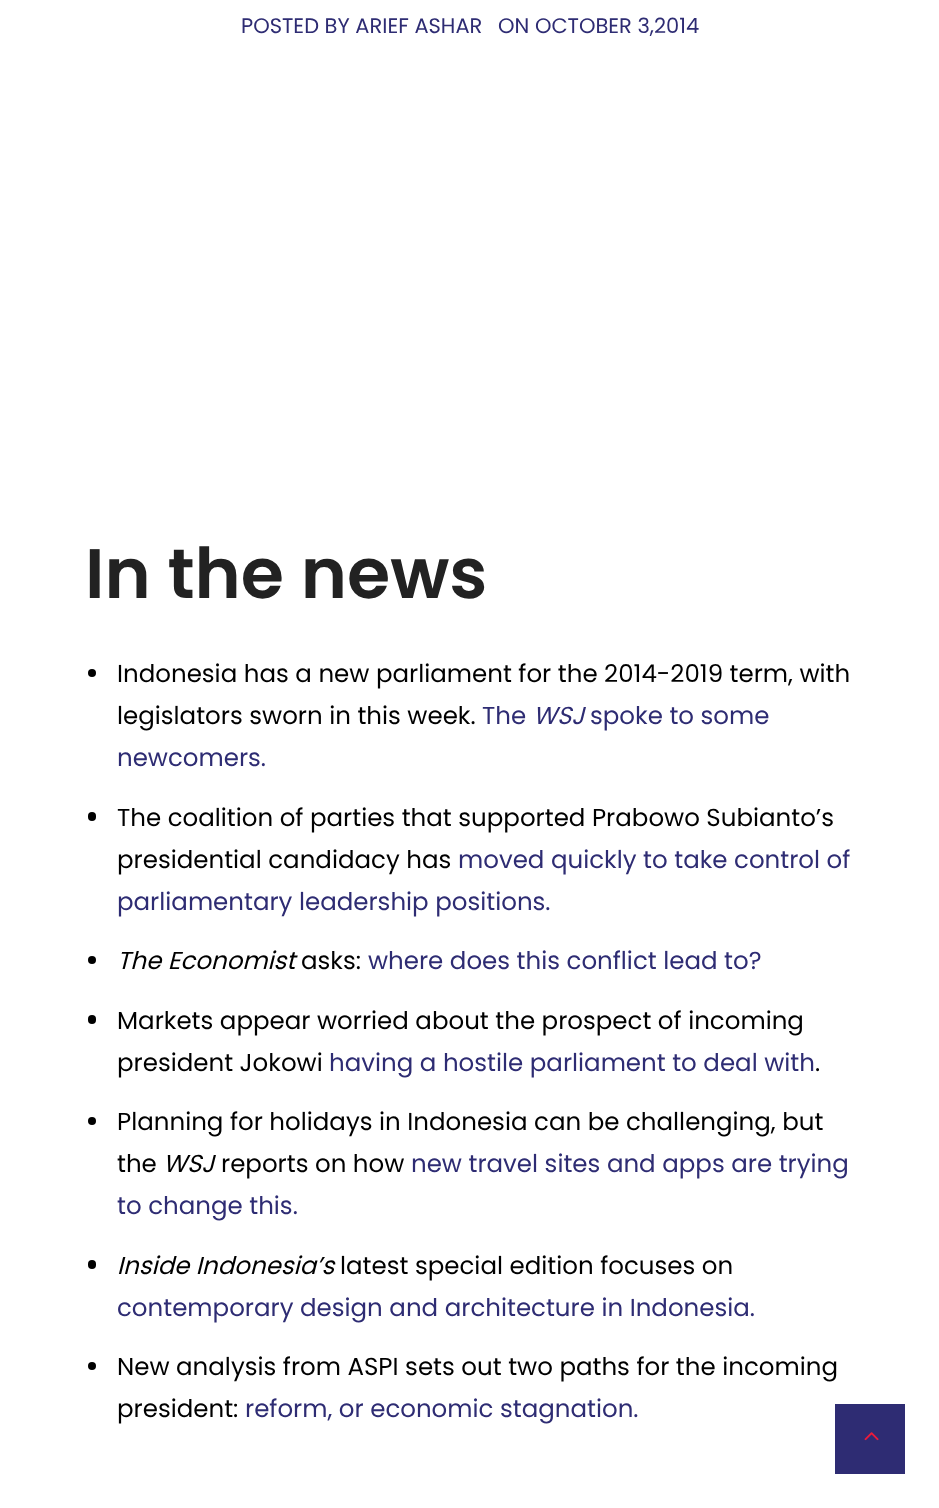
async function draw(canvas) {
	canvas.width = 939;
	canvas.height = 1508;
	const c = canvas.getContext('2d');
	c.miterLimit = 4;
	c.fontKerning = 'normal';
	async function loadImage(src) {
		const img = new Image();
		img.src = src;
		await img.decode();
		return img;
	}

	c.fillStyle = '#fff';
	c.fillRect(0, 0, 939, 1508);
	c.font = '21px Poppins';
	c.fillStyle = '#2e2c73';
	c.fillText('POSTED BY ARIEF ASHAR', 241, 33);
	c.fillText('ON OCTOBER 3,2014', 498, 33);
	c.font = '600 70px Poppins';
	c.fillStyle = '#222';
	c.fillText('In the news', 85, 598);
	c.fillStyle = '#000';
	c.beginPath();
	c.arc(92, 673, 4, 0, 2 * Math.PI);
	c.fill();
	c.font = '24.5px Poppins';
	c.fillText('Indonesia has a new parliament for the 2014-2019 term, with', 117, 682);
	c.fillText('legislators sworn in this week.', 117, 724);
	c.fillStyle = '#2e2c73';
	c.fillText('The', 482, 724);
	c.font = 'italic 24.5px Poppins';
	c.fillText('WSJ', 533, 724);
	c.font = '24.5px Poppins';
	c.fillText('spoke to some', 590, 724);
	c.fillText('newcomers.', 117, 766);
	c.fillStyle = '#000';
	c.beginPath();
	c.roundRect(88, 812, 8, 9, 4);
	c.fill();
	c.fillText('The coalition of parties that supported Prabowo Subianto’s', 117, 826);
	c.fillText('presidential candidacy has', 117, 868);
	c.fillStyle = '#2e2c73';
	c.fillText('moved quickly to take control of', 458, 868);
	c.fillText('parliamentary leadership positions.', 117, 910);
	c.fillStyle = '#000';
	c.beginPath();
	c.arc(92, 960, 4, 0, 2 * Math.PI);
	c.fill();
	c.font = 'italic 24.5px Poppins';
	c.fillText('The Economist', 117, 969);
	c.font = '24.5px Poppins';
	c.fillText('asks:', 301, 969);
	c.fillStyle = '#2e2c73';
	c.fillText('where does this conflict lead to?', 368, 969);
	c.fillStyle = '#000';
	c.beginPath();
	c.roundRect(88, 1015, 8, 9, 4);
	c.fill();
	c.fillText('Markets appear worried about the prospect of incoming', 117, 1029);
	c.fillText('president Jokowi', 117, 1071);
	c.fillStyle = '#2e2c73';
	c.fillText('having a hostile parliament to deal with', 329, 1071);
	c.fillStyle = '#000';
	c.fillText('.', 815, 1071);
	c.beginPath();
	c.arc(92, 1121, 4, 0, 2 * Math.PI);
	c.fill();
	c.fillText('Planning for holidays in Indonesia can be challenging, but', 117, 1130);
	c.fillText('the', 117, 1172);
	c.font = 'italic 24.5px Poppins';
	c.fillText('WSJ', 163, 1172);
	c.font = '24.5px Poppins';
	c.fillText('reports on how', 221, 1172);
	c.fillStyle = '#2e2c73';
	c.fillText('new travel sites and apps are trying', 411, 1172);
	c.fillText('to change this.', 117, 1214);
	c.fillStyle = '#000';
	c.beginPath();
	c.roundRect(88, 1260, 8, 9, 4);
	c.fill();
	c.font = 'italic 24.5px Poppins';
	c.fillText('Inside Indonesia’s', 117, 1274);
	c.font = '24.5px Poppins';
	c.fillText('latest special edition focuses on', 340, 1274);
	c.fillStyle = '#2e2c73';
	c.fillText('contemporary design and architecture in Indonesia.', 117, 1316);
	c.fillStyle = '#000';
	c.beginPath();
	c.arc(92, 1366, 4, 0, 2 * Math.PI);
	c.fill();
	c.fillText('New analysis from ASPI sets out two paths for the incoming', 117, 1375);
	c.fillText('president:', 117, 1417);
	c.fillStyle = '#2e2c73';
	c.fillText('reform, or economic stagnation.', 245, 1417);
	c.fillRect(835, 1404, 70, 70);
	c.drawImage(await loadImage('img1.png'), 864, 1432, 15, 9);
}

draw(document.querySelector('canvas'));
